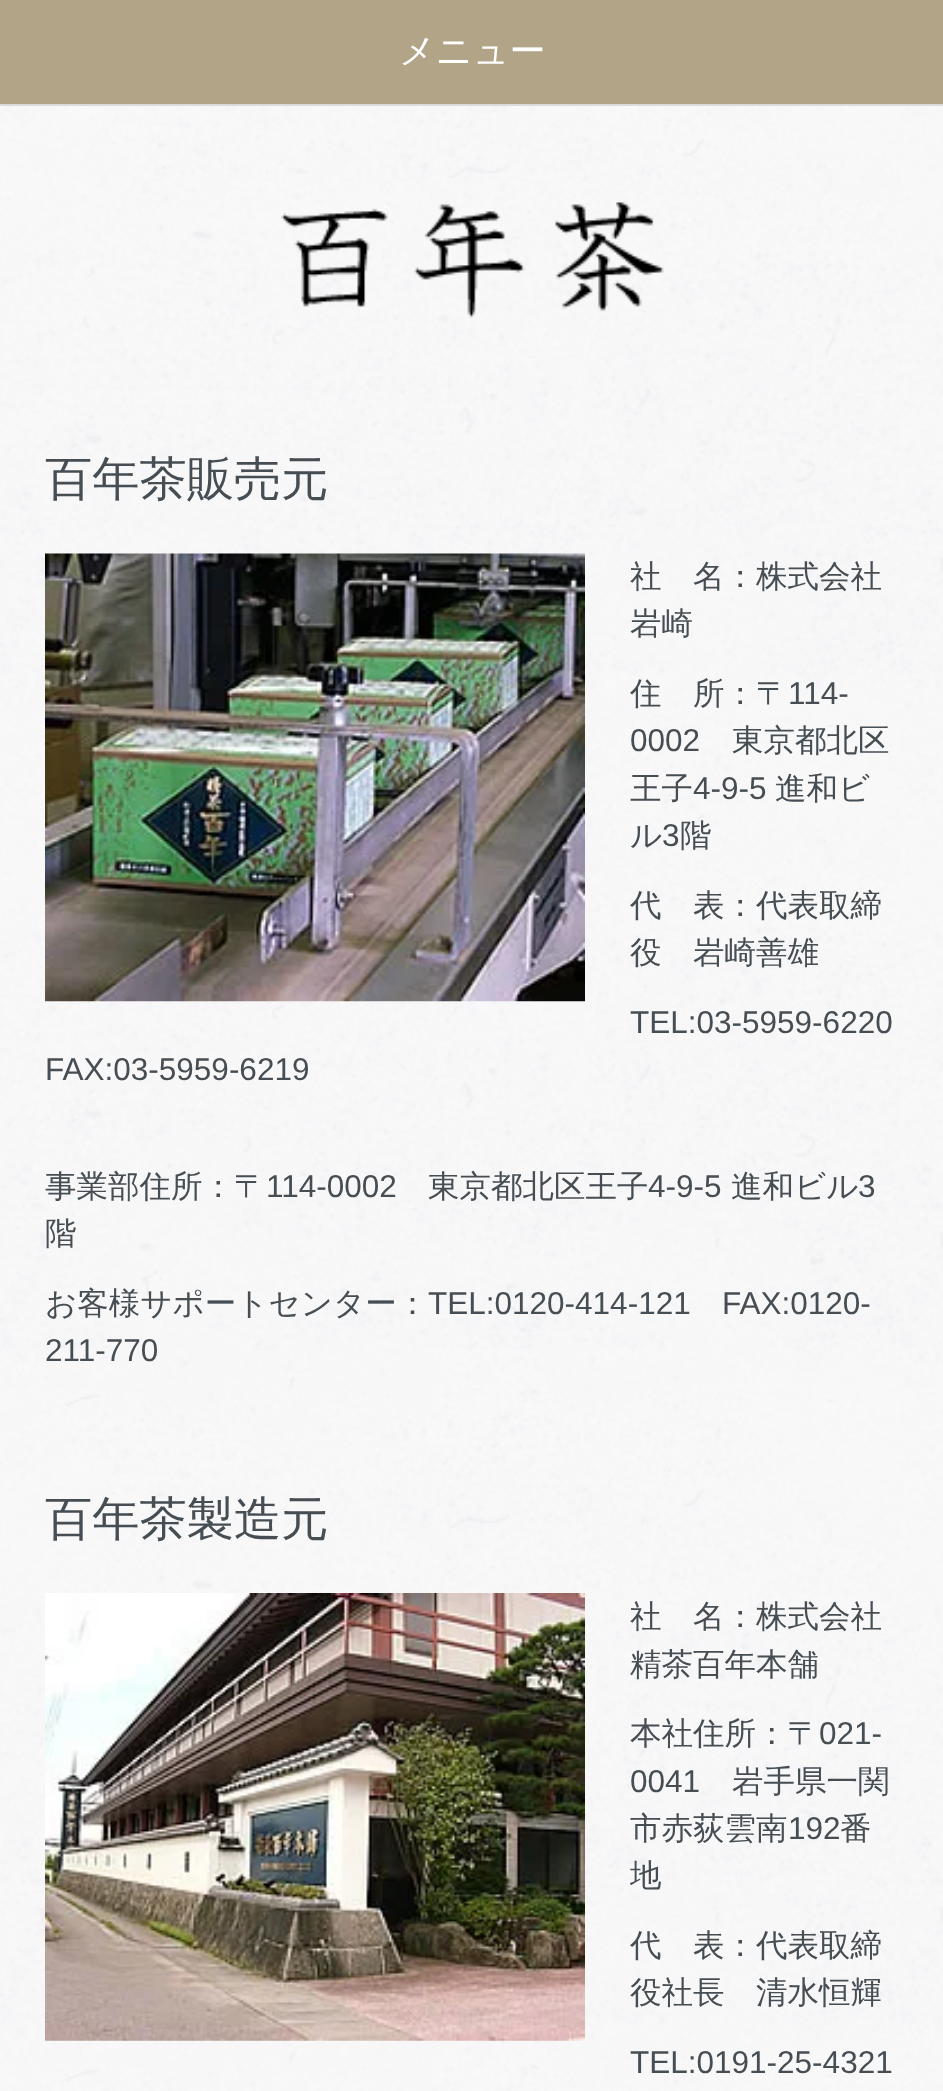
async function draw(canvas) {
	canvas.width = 943;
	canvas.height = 2091;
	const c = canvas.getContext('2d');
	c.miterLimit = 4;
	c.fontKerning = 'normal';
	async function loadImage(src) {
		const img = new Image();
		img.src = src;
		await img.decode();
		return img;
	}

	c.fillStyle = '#fff';
	c.fillRect(0, 0, 943, 2091);
	c.drawImage(await loadImage('img1.png'), 0, 106, 943, 1985);
	c.fillStyle = '#dbdbdb';
	c.fillRect(0, 104, 943, 2);
	c.fillStyle = '#b2a487';
	c.fillRect(0, 0, 943, 104);
	c.font = '500 36px WenQuanYi Zen Hei';
	c.fillStyle = '#fff';
	c.fillText('メニュー', 399, 63);
	c.drawImage(await loadImage('img2.png'), 281, 202, 383, 116);
	c.font = '500 47.25px WenQuanYi Zen Hei';
	c.fillStyle = '#464e54';
	c.fillText('百年茶販売元', 45, 495);
	c.drawImage(await loadImage('img3.png'), 45, 553, 540, 449);
	c.font = '500 31.5px WenQuanYi Zen Hei';
	for (const [text, x, y] of [
		['社　名：株式会社', 630, 587],
		['岩崎', 630, 634],
		['住　所：〒', 630, 704],
	]) {
		c.fillText(text, x, y);
	}
	c.font = '31.5px Liberation Sans';
	c.fillText('114-', 788, 704);
	c.fillText('0002', 630, 751);
	c.font = '500 31.5px WenQuanYi Zen Hei';
	c.fillText('東京都北区', 732, 751);
	c.fillText('王子', 630, 799);
	c.font = '31.5px Liberation Sans';
	c.fillText('4-9-5', 693, 799);
	c.font = '500 31.5px WenQuanYi Zen Hei';
	c.fillText('進和ビ', 775, 799);
	c.fillText('ル', 630, 846);
	c.font = '31.5px Liberation Sans';
	c.fillText('3', 662, 846);
	c.font = '500 31.5px WenQuanYi Zen Hei';
	for (const [text, x, y] of [
		['階', 680, 846],
		['代　表：代表取締', 630, 916],
		['役　岩崎善雄', 630, 963],
	]) {
		c.fillText(text, x, y);
	}
	c.font = '31.5px Liberation Sans';
	c.fillText('TEL:03-5959-6220', 630, 1033);
	c.fillText('FAX:03-5959-6219', 45, 1080);
	c.font = '500 31.5px WenQuanYi Zen Hei';
	c.fillText('事業部住所：〒', 45, 1197);
	c.font = '31.5px Liberation Sans';
	c.fillText('114-0002', 266, 1197);
	c.font = '500 31.5px WenQuanYi Zen Hei';
	c.fillText('東京都北区王子', 428, 1197);
	c.font = '31.5px Liberation Sans';
	c.fillText('4-9-5', 648, 1197);
	c.font = '500 31.5px WenQuanYi Zen Hei';
	c.fillText('進和ビル', 731, 1197);
	c.font = '31.5px Liberation Sans';
	c.fillText('3', 858, 1197);
	c.font = '500 31.5px WenQuanYi Zen Hei';
	c.fillText('階', 45, 1244);
	c.fillText('お客様サポートセンター：', 45, 1314);
	c.font = '31.5px Liberation Sans';
	for (const [text, x, y] of [
		['TEL:0120-414-121', 428, 1314],
		['FAX:0120-', 722, 1314],
		['211-770', 45, 1361],
	]) {
		c.fillText(text, x, y);
	}
	c.font = '500 47.25px WenQuanYi Zen Hei';
	c.fillText('百年茶製造元', 45, 1535);
	c.drawImage(await loadImage('img4.png'), 45, 1593, 540, 448);
	c.font = '500 31.5px WenQuanYi Zen Hei';
	for (const [text, x, y] of [
		['社　名：株式会社', 630, 1627],
		['精茶百年本舗', 630, 1675],
		['本社住所：〒', 630, 1744],
	]) {
		c.fillText(text, x, y);
	}
	c.font = '31.5px Liberation Sans';
	c.fillText('021-', 819, 1744);
	c.fillText('0041', 630, 1792);
	c.font = '500 31.5px WenQuanYi Zen Hei';
	c.fillText('岩手県一関', 732, 1792);
	c.fillText('市赤荻雲南', 630, 1839);
	c.font = '31.5px Liberation Sans';
	c.fillText('192', 788, 1839);
	c.font = '500 31.5px WenQuanYi Zen Hei';
	for (const [text, x, y] of [
		['番', 840, 1839],
		['地', 630, 1886],
		['代　表：代表取締', 630, 1956],
		['役社長　清水恒輝', 630, 2003],
	]) {
		c.fillText(text, x, y);
	}
	c.font = '31.5px Liberation Sans';
	c.fillText('TEL:0191-25-4321', 630, 2073);
}

draw(document.querySelector('canvas'));
